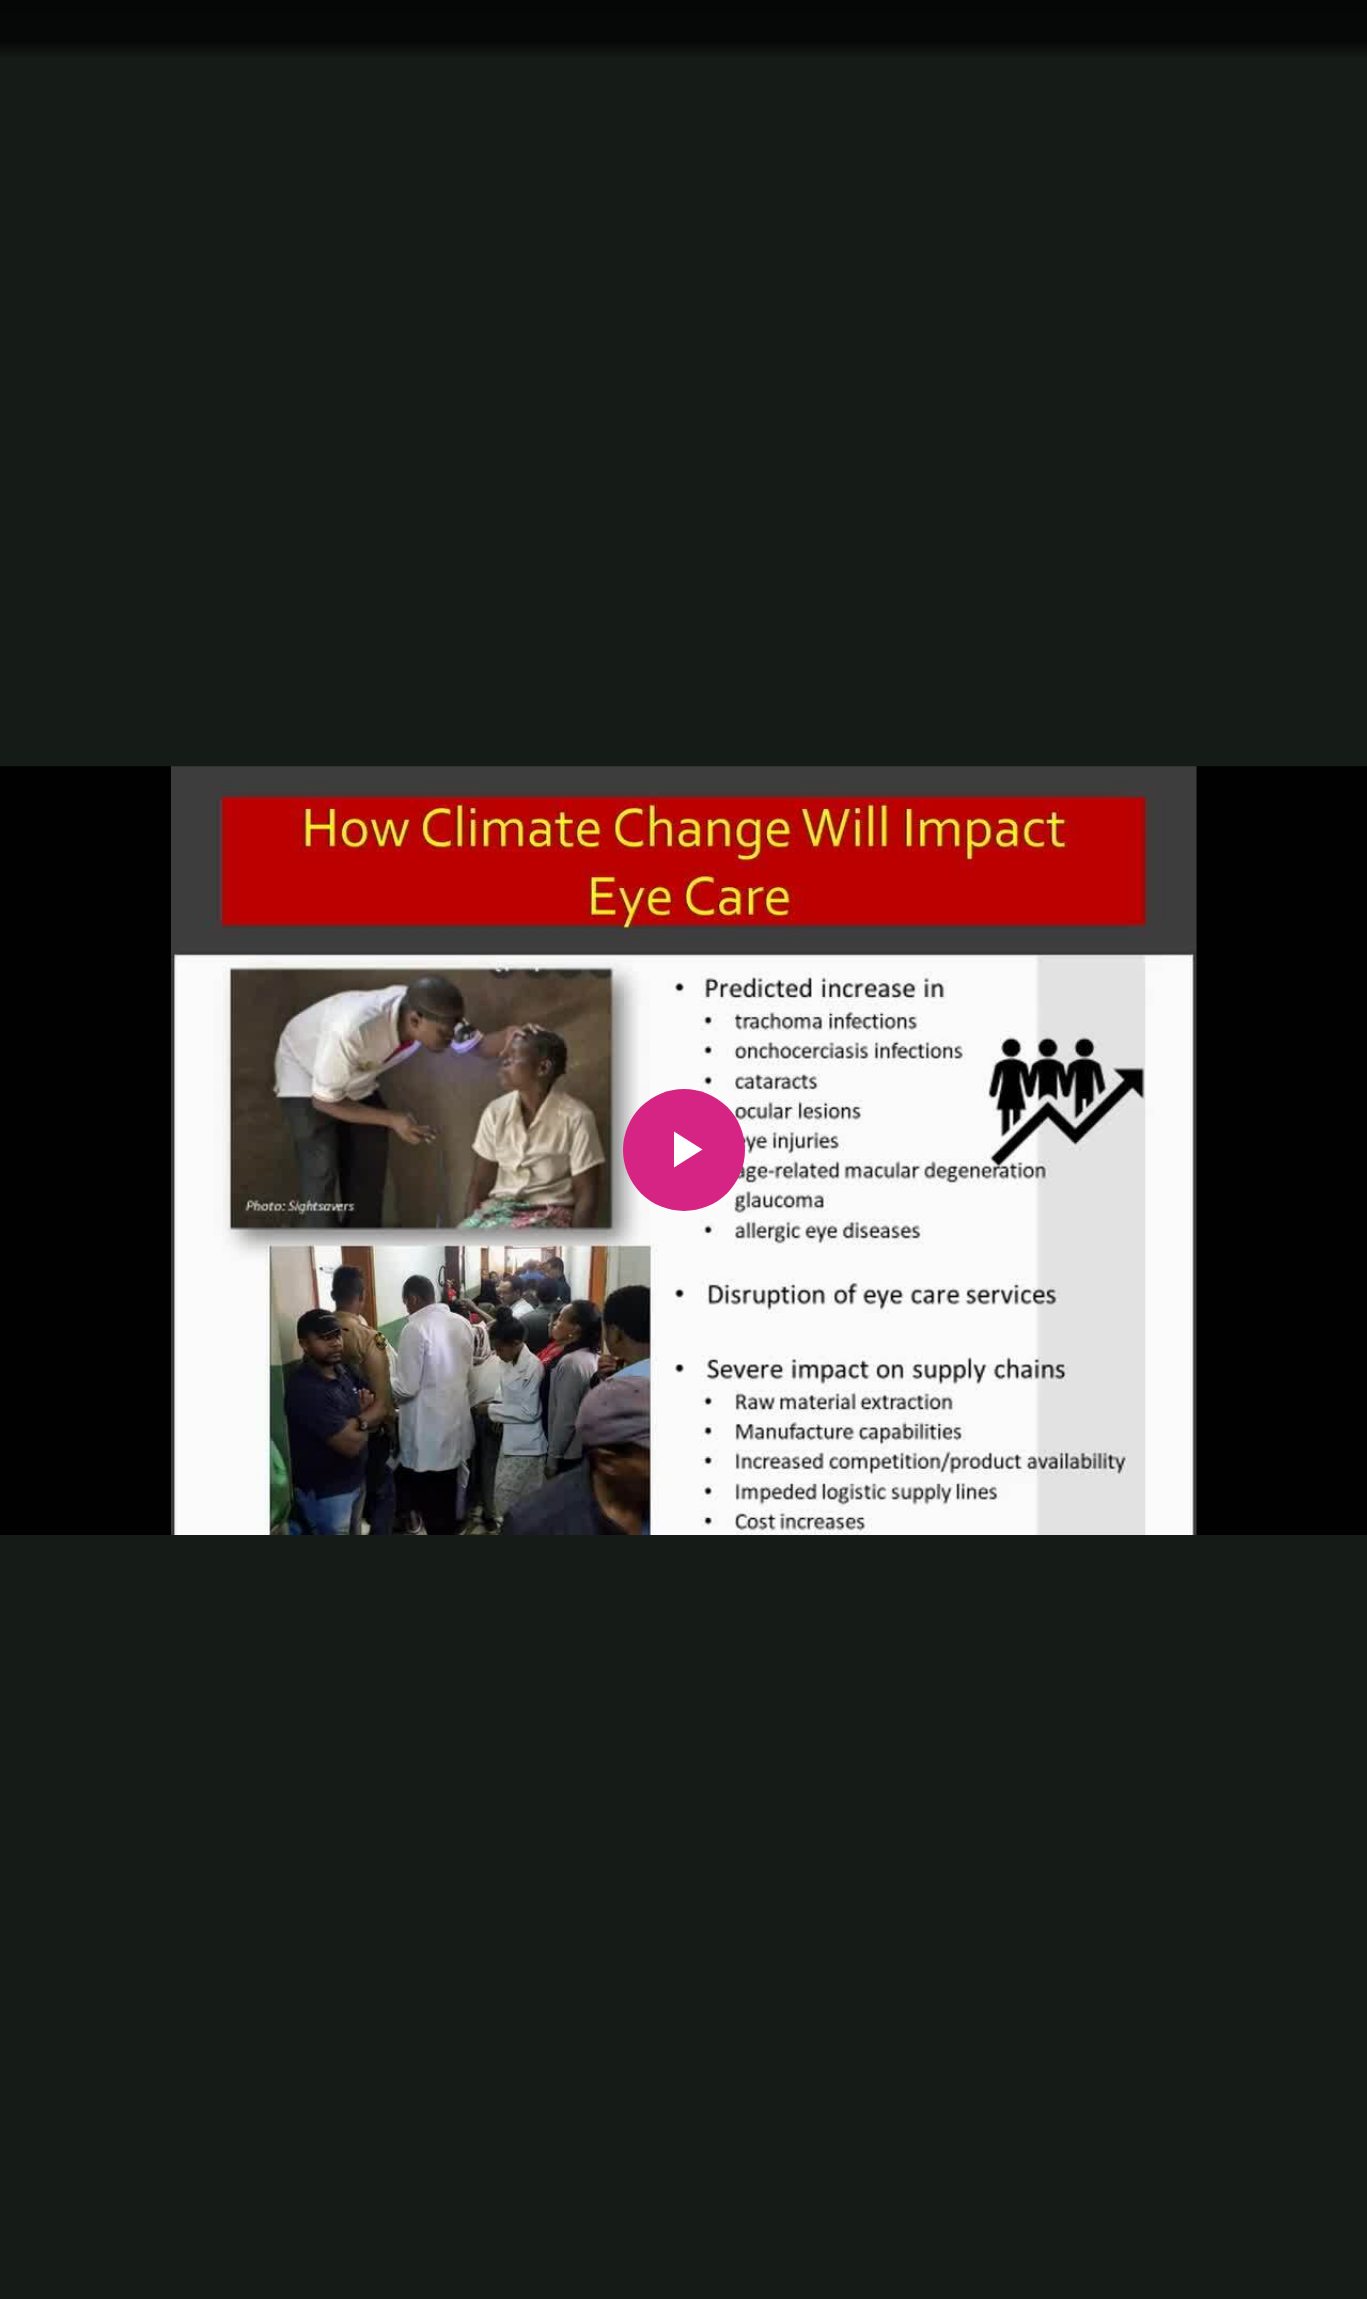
async function draw(canvas) {
	canvas.width = 1367;
	canvas.height = 2299;
	const c = canvas.getContext('2d');
	c.miterLimit = 4;
	c.fontKerning = 'normal';
	async function loadImage(src) {
		const img = new Image();
		img.src = src;
		await img.decode();
		return img;
	}
	let gradient;

	c.fillStyle = '#151b17';
	c.fillRect(0, 0, 1367, 2299);
	gradient = c.createLinearGradient(684, 0, 684, 59);
	gradient.addColorStop(0, '#040505');
	gradient.addColorStop(0.3, '#060807');
	gradient.addColorStop(0.7, '#060807');
	gradient.addColorStop(1, '#151b17');
	c.fillStyle = gradient;
	c.fillRect(0, 0, 1367, 57);
	c.drawImage(await loadImage('img1.png'), 0, 766, 1367, 769);
	c.fillStyle = '#d52484';
	c.beginPath();
	c.arc(684, 1150, 61, 0, 2 * Math.PI);
	c.fill();
	c.fillStyle = '#fff';
	c.beginPath();
	c.moveTo(674, 1131.5);
	c.lineTo(674, 1167.5);
	c.lineTo(702.5, 1149.5);
	c.closePath();
	c.fill();
}

draw(document.querySelector('canvas'));
